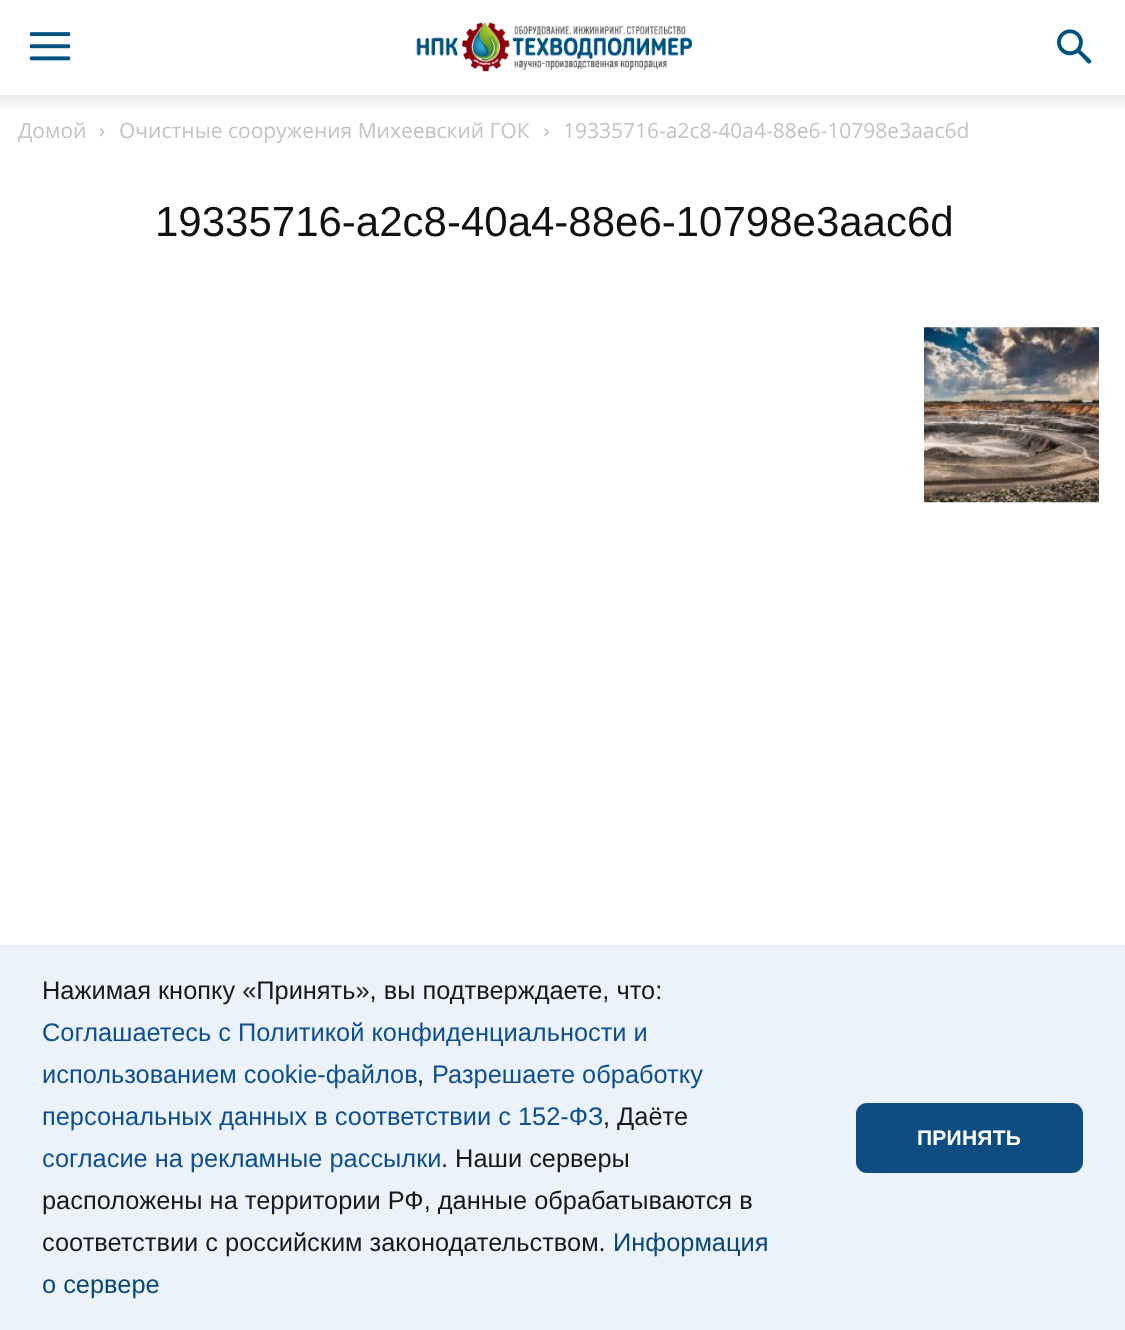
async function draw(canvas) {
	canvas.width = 1125;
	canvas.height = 1330;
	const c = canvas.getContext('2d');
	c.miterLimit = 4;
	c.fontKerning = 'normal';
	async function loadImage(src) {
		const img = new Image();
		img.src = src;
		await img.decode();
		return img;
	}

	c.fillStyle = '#fff';
	c.fillRect(0, 0, 1125, 1330);
	c.drawImage(await loadImage('img1.png'), 29, 32, 42, 29);
	c.drawImage(await loadImage('img2.png'), 416, 22, 276, 50);
	c.drawImage(await loadImage('img3.png'), 1057, 29, 35, 35);
	c.drawImage(await loadImage('img4.png'), 0, 95, 1125, 14);
	c.font = '21px Open Sans';
	c.fillStyle = '#c3c3c3';
	c.fillText('Домой', 18, 138);
	c.drawImage(await loadImage('img5.png'), 99, 128, 6, 9);
	c.fillText('Очистные сооружения Михеевский ГОК', 119, 138);
	c.drawImage(await loadImage('img6.png'), 544, 128, 5, 9);
	c.fillText('19335716-a2c8-40a4-88e6-10798e3aac6d', 563, 138);
	c.font = '42px Liberation Sans';
	c.fillStyle = '#111';
	c.fillText('19335716-a2c8-40a4-88e6-10798e3aac6d', 155, 236);
	c.drawImage(await loadImage('img7.png'), 924, 327, 175, 176);
	c.fillStyle = '#ebf2fa';
	c.fillRect(0, 945, 1125, 385);
	c.font = '25.4px Liberation Sans';
	c.fillStyle = '#191919';
	c.fillText('Нажимая кнопку «Принять», вы подтверждаете, что:', 42, 999);
	c.fillStyle = '#0d4f91';
	c.fillText('Соглашаетесь с Политикой конфиденциальности и', 42, 1041);
	c.fillText('использованием cookie-файлов', 42, 1083);
	c.fillStyle = '#191919';
	c.fillText(',', 417, 1083);
	c.fillStyle = '#0d4f91';
	c.fillText('Разрешаете обработку', 432, 1083);
	c.fillText('персональных данных в соответствии с 152-ФЗ', 42, 1125);
	c.fillStyle = '#191919';
	c.fillText(', Даёте', 603, 1125);
	c.fillStyle = '#0d4f91';
	c.fillText('согласие на рекламные рассылки', 42, 1167);
	c.fillStyle = '#191919';
	for (const [text, x, y] of [
		['. Наши серверы', 441, 1167],
		['расположены на территории РФ, данные обрабатываются в', 42, 1209],
		['соответствии с российским законодательством.', 42, 1251],
	]) {
		c.fillText(text, x, y);
	}
	c.fillStyle = '#094675';
	c.fillText('Информация', 613, 1251);
	c.fillText('о сервере', 42, 1293);
	c.fillStyle = '#0f4c81';
	c.beginPath();
	c.roundRect(856, 1103, 227, 70, 11);
	c.fill();
	c.letterSpacing = '0.25px';
	c.font = 'bold 21px Liberation Sans';
	c.fillStyle = '#fff';
	c.fillText('ПРИНЯТЬ', 917, 1145);
}

draw(document.querySelector('canvas'));
